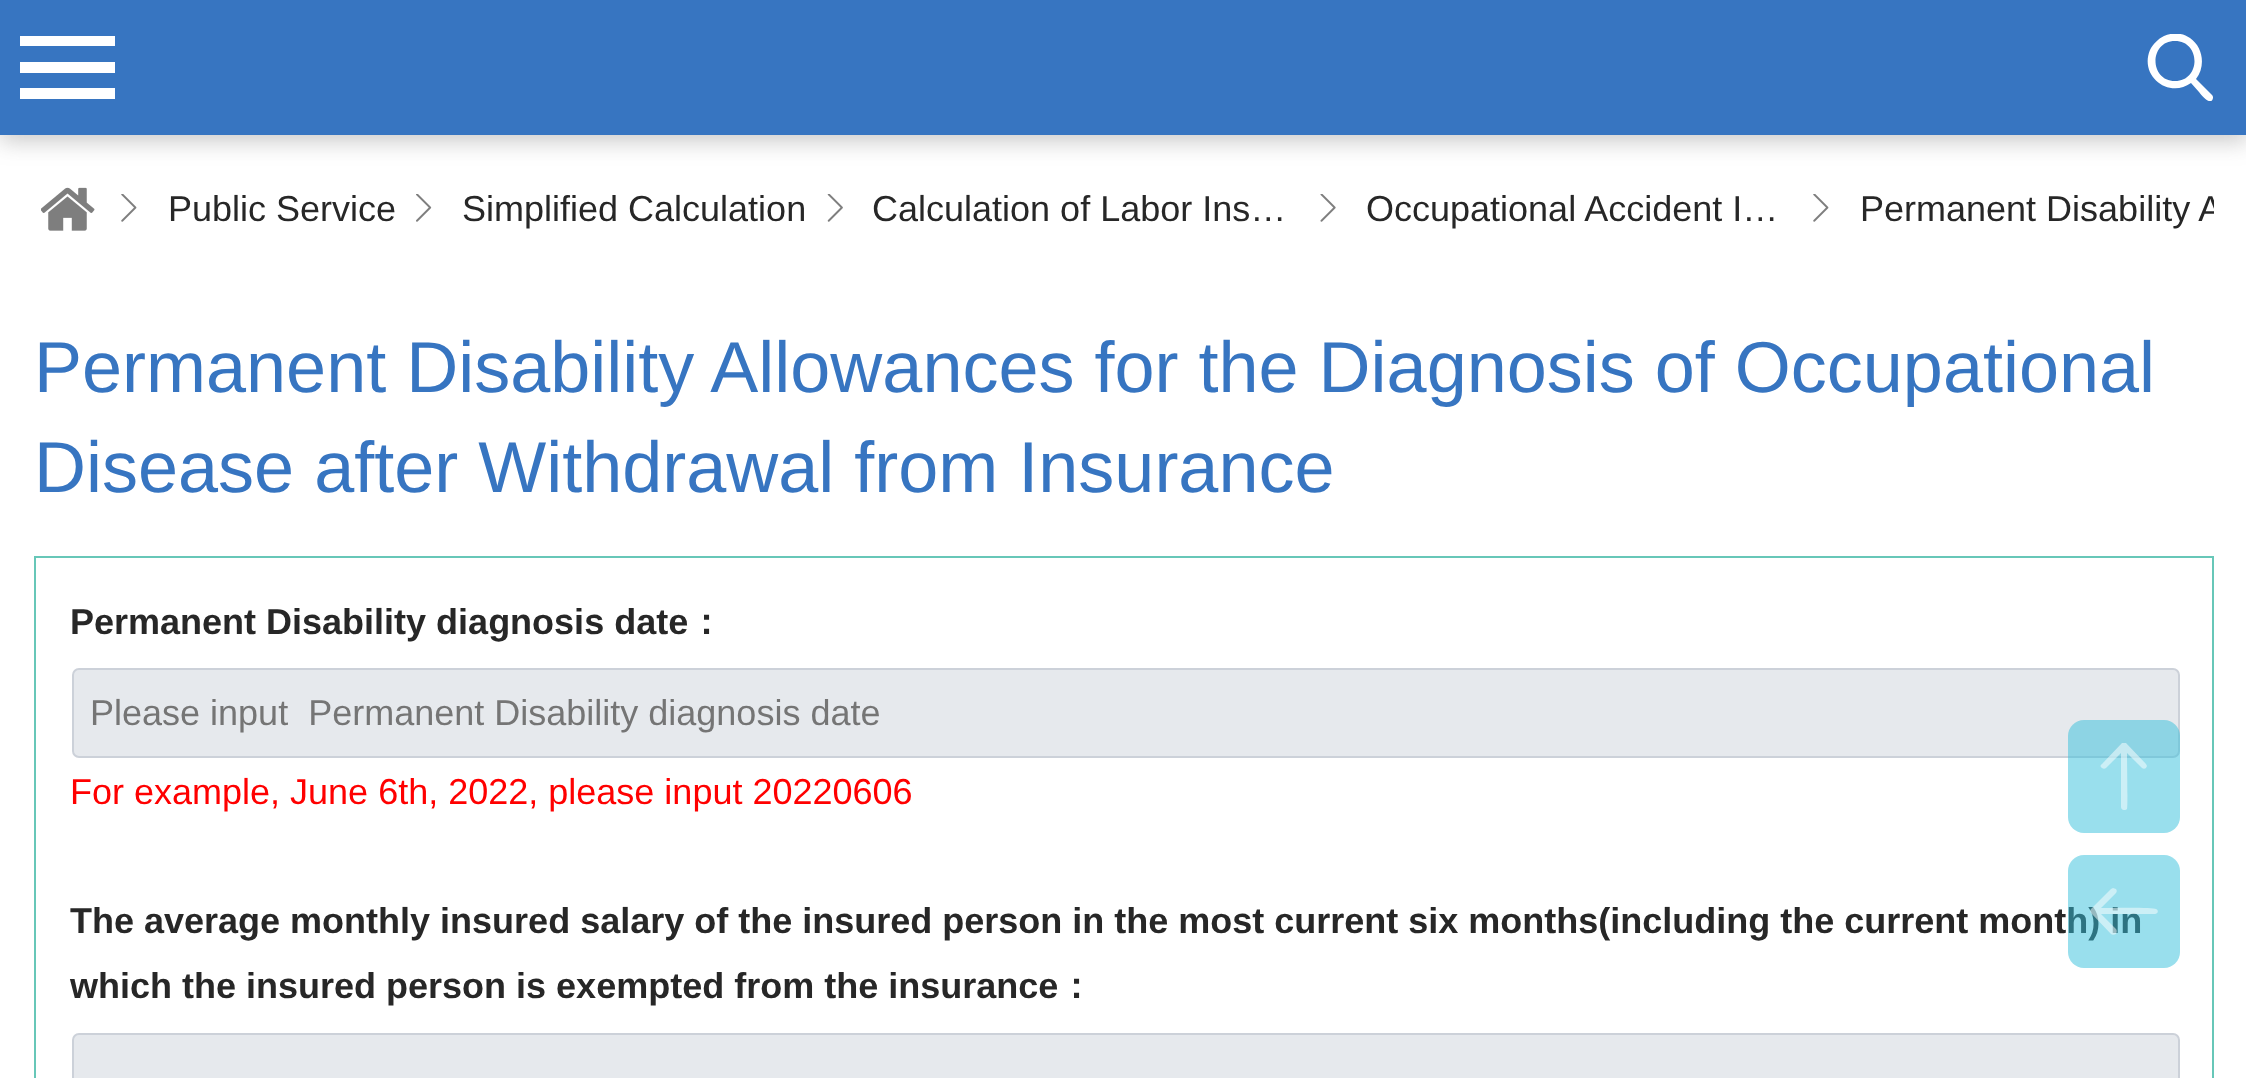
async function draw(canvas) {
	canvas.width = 2246;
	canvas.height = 1078;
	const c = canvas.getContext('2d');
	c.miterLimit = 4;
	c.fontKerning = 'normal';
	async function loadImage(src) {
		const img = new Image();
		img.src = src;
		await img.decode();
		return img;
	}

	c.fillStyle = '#fff';
	c.fillRect(0, 0, 2246, 1078);
	c.fillStyle = '#5757574d';
	c.filter = 'blur(11px)';
	c.beginPath();
	c.rect(0, 7, 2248, 135);
	c.fill();
	c.filter = 'none';
	c.fillStyle = '#3775c1';
	c.fillRect(0, 0, 2246, 135);
	c.fillStyle = '#fff';
	c.beginPath();
	c.moveTo(20, 99);
	c.lineTo(115, 99);
	c.lineTo(115, 88);
	c.lineTo(20, 88);
	c.closePath();
	c.moveTo(20, 73);
	c.lineTo(115, 73);
	c.lineTo(115, 62);
	c.lineTo(20, 62);
	c.closePath();
	c.moveTo(20, 36);
	c.lineTo(20, 46);
	c.lineTo(115, 46);
	c.lineTo(115, 36);
	c.closePath();
	c.fill();
	c.save();
	c.beginPath();
	c.rect(2147, 34, 67, 67);
	c.clip();
	c.beginPath();
	c.moveTo(2212, 95);
	c.lineTo(2196, 79);
	c.bezierCurveTo(2206, 66, 2203, 47, 2190, 38);
	c.bezierCurveTo(2183, 33, 2173, 32, 2164, 36);
	c.bezierCurveTo(2158, 39, 2153, 44, 2150, 50);
	c.bezierCurveTo(2139, 76, 2169, 99, 2191, 83);
	c.lineTo(2199, 92);
	c.bezierCurveTo(2199, 92, 2211, 108, 2213, 98);
	c.bezierCurveTo(2213, 97, 2213, 96, 2212, 95);
	c.closePath();
	c.moveTo(2175, 41);
	c.bezierCurveTo(2201, 41, 2201, 81, 2175, 81);
	c.bezierCurveTo(2149, 81, 2149, 41, 2175, 41);
	c.closePath();
	c.fill();
	c.restore();
	c.drawImage(await loadImage('img1.png'), 41, 187, 54, 44);
	c.drawImage(await loadImage('img2.png'), 121, 194, 16, 28);
	c.font = '36px Liberation Sans';
	c.fillStyle = '#272727';
	c.fillText('Public Service', 168, 221);
	c.drawImage(await loadImage('img3.png'), 416, 194, 16, 28);
	c.fillText('Simplified Calculation', 462, 221);
	c.drawImage(await loadImage('img4.png'), 827, 194, 16, 28);
	c.fillText('Calculation of Labor Ins…', 872, 221);
	c.drawImage(await loadImage('img5.png'), 1320, 194, 16, 28);
	c.fillText('Occupational Accident I…', 1366, 221);
	c.drawImage(await loadImage('img2.png'), 1813, 194, 16, 28);
	c.save();
	c.beginPath();
	c.rect(1861, 158, 353, 101);
	c.clip();
	c.fillText('Permanent Disability A', 1860, 221);
	c.restore();
	c.font = '72px Liberation Sans';
	c.fillStyle = '#3775c1';
	c.fillText('Permanent Disability Allowances for the Diagnosis of Occupational', 34, 392);
	c.fillText('Disease after Withdrawal from Insurance', 34, 492);
	c.strokeStyle = '#67c7b8';
	c.lineWidth = 2;
	c.strokeRect(35, 557, 2178, 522);
	c.font = 'bold 36px Liberation Sans';
	c.fillStyle = '#272727';
	c.fillText('Permanent Disability diagnosis date', 70, 634);
	c.font = 'bold 36px WenQuanYi Zen Hei';
	c.fillText('：', 688, 634);
	c.fillStyle = '#e6e9ed';
	c.beginPath();
	c.roundRect(73, 669, 2106, 88, 6);
	c.fill();
	c.strokeStyle = '#ccd1d9';
	c.stroke();
	c.font = '36px Liberation Sans';
	c.fillStyle = '#757575';
	c.fillText('Please input  Permanent Disability diagnosis date', 90, 725);
	c.fillStyle = '#f00';
	c.fillText('For example, June 6th, 2022, please input 20220606', 70, 804);
	c.font = 'bold 36px Liberation Sans';
	c.fillStyle = '#272727';
	c.fillText('The average monthly insured salary of the insured person in the most current six months(including the current month) in', 70, 933);
	c.fillText('which the insured person is exempted from the insurance', 70, 998);
	c.font = 'bold 36px WenQuanYi Zen Hei';
	c.fillText('：', 1058, 998);
	c.fillStyle = '#e6e9ed';
	c.beginPath();
	c.roundRect(73, 1034, 2106, 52, 6);
	c.fill();
	c.stroke();
	c.fillStyle = '#34bfdc80';
	c.beginPath();
	c.roundRect(2068, 720, 112, 113, 16);
	c.fill();
	c.save();
	c.beginPath();
	c.rect(2090, 743, 68, 67);
	c.clip();
	c.fillStyle = '#ffffff80';
	c.beginPath();
	c.moveTo(2122, 743);
	c.lineTo(2102, 764);
	c.bezierCurveTo(2100, 765, 2100, 767, 2102, 768);
	c.bezierCurveTo(2103, 769, 2105, 769, 2106, 768);
	c.lineTo(2121, 753);
	c.lineTo(2121, 807);
	c.bezierCurveTo(2121, 810, 2125, 811, 2127, 809);
	c.bezierCurveTo(2128, 807, 2127, 759, 2127, 753);
	c.lineTo(2142, 768);
	c.bezierCurveTo(2143, 769, 2145, 769, 2146, 768);
	c.lineTo(2147, 766);
	c.lineTo(2146, 764);
	c.lineTo(2126, 743);
	c.bezierCurveTo(2125, 742, 2123, 742, 2122, 743);
	c.closePath();
	c.fill();
	c.restore();
	c.beginPath();
	c.roundRect(2068, 855, 112, 113, 16);
	c.fill();
	c.fillStyle = '#ffffff80';
	c.beginPath();
	c.moveTo(2091, 913);
	c.lineTo(2111, 934);
	c.bezierCurveTo(2112, 935, 2114, 935, 2116, 934);
	c.bezierCurveTo(2117, 932, 2117, 930, 2116, 929);
	c.lineTo(2101, 914);
	c.lineTo(2155, 914);
	c.bezierCurveTo(2158, 914, 2159, 910, 2156, 909);
	c.bezierCurveTo(2154, 907, 2107, 908, 2101, 908);
	c.lineTo(2116, 893);
	c.bezierCurveTo(2117, 892, 2117, 890, 2116, 889);
	c.lineTo(2113, 888);
	c.lineTo(2111, 889);
	c.lineTo(2091, 909);
	c.bezierCurveTo(2090, 910, 2090, 912, 2091, 913);
	c.closePath();
	c.fill();
}

draw(document.querySelector('canvas'));
